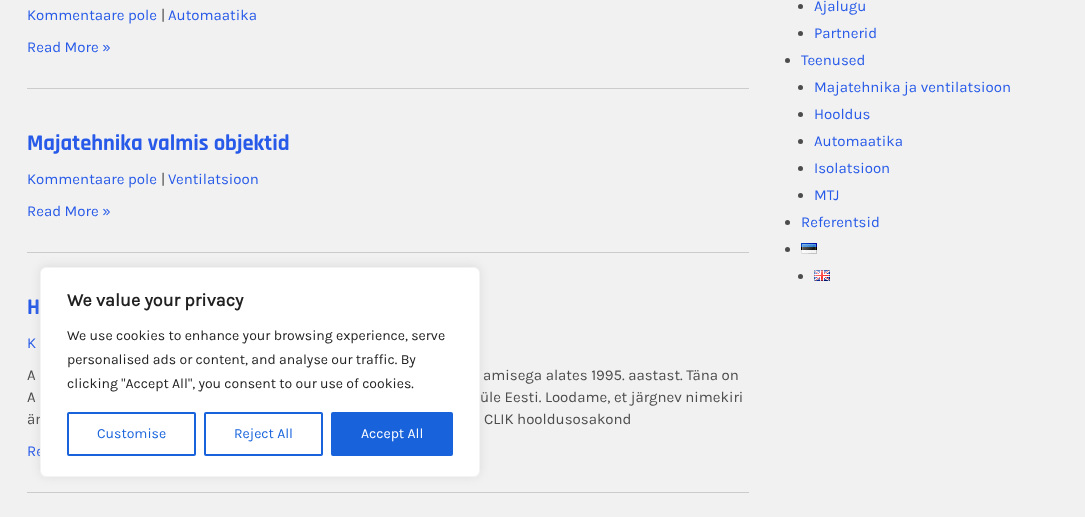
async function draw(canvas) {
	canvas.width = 1085;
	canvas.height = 517;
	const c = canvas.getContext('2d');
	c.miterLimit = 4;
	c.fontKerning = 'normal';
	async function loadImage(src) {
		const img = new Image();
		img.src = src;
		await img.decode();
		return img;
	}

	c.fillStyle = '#f1f1f1';
	c.fillRect(0, 0, 1085, 517);
	c.fillStyle = '#ccc';
	c.fillRect(27, 88, 722, 1);
	c.font = '15px Karla';
	c.fillStyle = '#275ae8';
	c.fillText('Kommentaare pole', 27, 20);
	c.fillStyle = '#4c4c4c';
	c.fillText('|', 161, 20);
	c.fillStyle = '#275ae8';
	c.fillText('Automaatika', 168, 20);
	c.fillText('Read More »', 27, 52);
	c.fillStyle = '#ccc';
	c.fillRect(27, 252, 722, 1);
	c.font = 'bold 22.5px Rajdhani';
	c.fillStyle = '#275ae8';
	c.fillText('Majatehnika valmis objektid', 27, 150);
	c.font = '15px Karla';
	c.fillText('Kommentaare pole', 27, 184);
	c.fillStyle = '#4c4c4c';
	c.fillText('|', 161, 184);
	c.fillStyle = '#275ae8';
	c.fillText('Ventilatsioon', 168, 184);
	c.fillText('Read More »', 27, 216);
	c.fillStyle = '#ccc';
	c.fillRect(27, 492, 722, 1);
	c.font = 'bold 22.5px Rajdhani';
	c.fillStyle = '#275ae8';
	c.fillText('H', 27, 314);
	c.font = '15px Karla';
	c.fillText('K', 27, 348);
	c.fillStyle = '#4c4c4c';
	for (const [text, x, y] of [
		['A', 27, 380],
		['amisega alates 1995. aastast. Täna on', 483, 380],
		['A', 27, 402],
		['üle Eesti. Loodame, et järgnev nimekiri', 480, 402],
		['är', 27, 424],
		['CLIK hooldusosakond', 484, 424],
	]) {
		c.fillText(text, x, y);
	}
	c.fillStyle = '#275ae8';
	c.fillText('Re', 27, 456);
	c.fillStyle = '#4c4c4c';
	c.beginPath();
	c.arc(800.5, 6.5, 2.5, 0, 2 * Math.PI);
	c.fill();
	c.fillStyle = '#275ae8';
	c.fillText('Ajalugu', 814, 11);
	c.fillStyle = '#4c4c4c';
	c.beginPath();
	c.arc(800.5, 33.5, 2.5, 0, 2 * Math.PI);
	c.fill();
	c.fillStyle = '#275ae8';
	c.fillText('Partnerid', 814, 38);
	c.fillStyle = '#4c4c4c';
	c.beginPath();
	c.arc(787.5, 60.5, 2.5, 0, 2 * Math.PI);
	c.fill();
	c.fillStyle = '#275ae8';
	c.fillText('Teenused', 801, 65);
	c.fillStyle = '#4c4c4c';
	c.beginPath();
	c.arc(800.5, 87.5, 2.5, 0, 2 * Math.PI);
	c.fill();
	c.fillStyle = '#275ae8';
	c.fillText('Majatehnika ja ventilatsioon', 814, 92);
	c.fillStyle = '#4c4c4c';
	c.beginPath();
	c.arc(800.5, 114.5, 2.5, 0, 2 * Math.PI);
	c.fill();
	c.fillStyle = '#275ae8';
	c.fillText('Hooldus', 814, 119);
	c.fillStyle = '#4c4c4c';
	c.beginPath();
	c.arc(800.5, 141.5, 2.5, 0, 2 * Math.PI);
	c.fill();
	c.fillStyle = '#275ae8';
	c.fillText('Automaatika', 814, 146);
	c.fillStyle = '#4c4c4c';
	c.beginPath();
	c.arc(800.5, 168.5, 2.5, 0, 2 * Math.PI);
	c.fill();
	c.fillStyle = '#275ae8';
	c.fillText('Isolatsioon', 814, 173);
	c.fillStyle = '#4c4c4c';
	c.beginPath();
	c.arc(800.5, 195.5, 2.5, 0, 2 * Math.PI);
	c.fill();
	c.fillStyle = '#275ae8';
	c.fillText('MTJ', 814, 200);
	c.fillStyle = '#4c4c4c';
	c.beginPath();
	c.arc(787.5, 222.5, 2.5, 0, 2 * Math.PI);
	c.fill();
	c.fillStyle = '#275ae8';
	c.fillText('Referentsid', 801, 227);
	c.fillStyle = '#4c4c4c';
	c.beginPath();
	c.arc(787.5, 249.5, 2.5, 0, 2 * Math.PI);
	c.fill();
	c.drawImage(await loadImage('img1.png'), 801, 243, 16, 11);
	c.beginPath();
	c.arc(800.5, 276.5, 2.5, 0, 2 * Math.PI);
	c.fill();
	c.drawImage(await loadImage('img2.png'), 814, 270, 16, 11);
	c.fillStyle = '#acabab4d';
	c.filter = 'blur(5px)';
	c.beginPath();
	c.roundRect(40, 266, 440, 210, 6);
	c.fill();
	c.filter = 'none';
	c.fillStyle = '#fff';
	c.beginPath();
	c.roundRect(40.5, 267.5, 439, 209, 5.5);
	c.fill();
	c.strokeStyle = '#f4f4f4';
	c.stroke();
	c.font = 'bold 18px Karla';
	c.fillStyle = '#212121';
	c.fillText('We value your privacy', 67, 306);
	c.font = '14px Karla';
	for (const [text, x, y] of [
		['We use cookies to enhance your browsing experience, serve', 67, 340],
		['personalised ads or content, and analyse our traffic. By', 67, 364],
		['clicking "Accept All", you consent to our use of cookies.', 67, 388],
	]) {
		c.fillText(text, x, y);
	}
	c.beginPath();
	c.roundRect(68, 413, 127, 42, 1);
	c.strokeStyle = '#1863dc';
	c.lineWidth = 2;
	c.stroke();
	c.fillStyle = '#1863dc';
	c.fillText('Customise', 97, 438);
	c.beginPath();
	c.roundRect(205, 413, 117, 42, 1);
	c.stroke();
	c.fillText('Reject All', 234, 438);
	c.beginPath();
	c.roundRect(332, 413, 120, 42, 1);
	c.fill();
	c.stroke();
	c.fillStyle = '#fff';
	c.fillText('Accept All', 361, 438);
}

draw(document.querySelector('canvas'));
